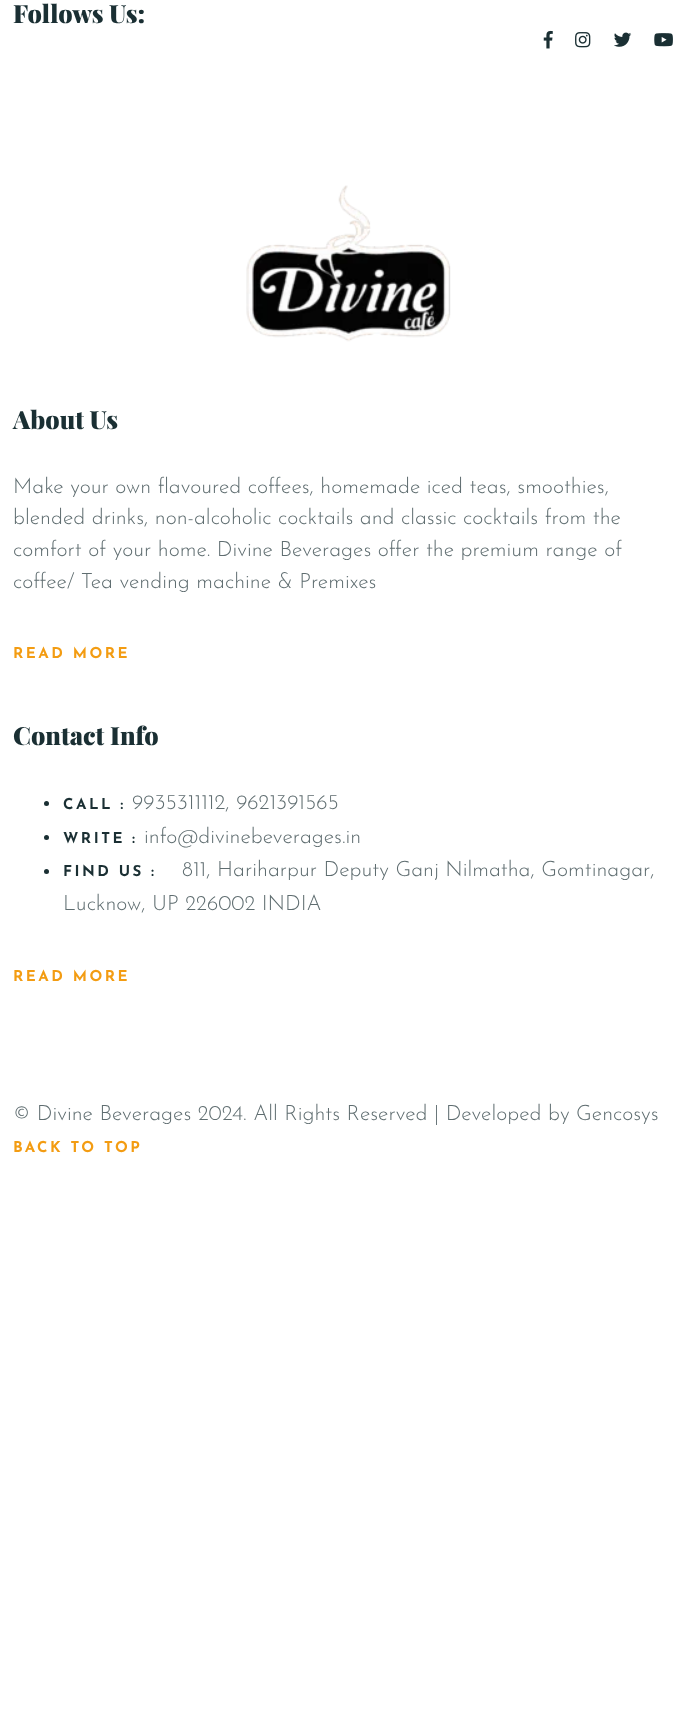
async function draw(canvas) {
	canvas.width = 695;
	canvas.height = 1734;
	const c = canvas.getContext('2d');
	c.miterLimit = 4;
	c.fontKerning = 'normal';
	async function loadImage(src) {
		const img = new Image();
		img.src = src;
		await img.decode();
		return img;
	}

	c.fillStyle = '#fff';
	c.fillRect(0, 0, 695, 1734);
	c.font = '900 25px Playfair Display';
	c.fillStyle = '#1a2f33';
	c.fillText('Follows Us:', 13, 23);
	c.drawImage(await loadImage('img1.png'), 543, 30, 10, 19);
	c.drawImage(await loadImage('img2.png'), 575, 32, 16, 16);
	c.drawImage(await loadImage('img3.png'), 614, 32, 18, 15);
	c.drawImage(await loadImage('img4.png'), 654, 33, 19, 14);
	c.drawImage(await loadImage('img5.png'), 246, 185, 205, 157);
	c.fillText('About Us', 13, 429);
	c.font = '300 21.25px Josefin Sans';
	c.fillStyle = '#5f6d70';
	for (const [text, x, y] of [
		['Make your own flavoured coffees, homemade iced teas, smoothies,', 13, 493],
		['blended drinks, non-alcoholic cocktails and classic cocktails from the', 13, 524],
		['comfort of your home. Divine Beverages offer the premium range of', 13, 556],
		['coffee/ Tea vending machine & Premixes', 13, 588],
	]) {
		c.fillText(text, x, y);
	}
	c.letterSpacing = '2.5px';
	c.font = 'bold 15px Josefin Sans';
	c.fillStyle = '#f39c12';
	c.fillText('READ MORE', 13, 658);
	c.letterSpacing = '0px';
	c.font = '900 25px Playfair Display';
	c.fillStyle = '#1a2f33';
	c.fillText('Contact Info', 13, 745);
	c.beginPath();
	c.arc(46.5, 803.5, 2.5, 0, 2 * Math.PI);
	c.fill();
	c.letterSpacing = '2.5px';
	c.font = 'bold 15px Josefin Sans';
	c.fillText('CALL :', 63, 809);
	c.letterSpacing = '0px';
	c.font = '300 21.25px Josefin Sans';
	c.fillStyle = '#5f6d70';
	c.fillText('9935311112, 9621391565', 132, 809);
	c.fillStyle = '#1a2f33';
	c.beginPath();
	c.arc(46.5, 837.5, 2.5, 0, 2 * Math.PI);
	c.fill();
	c.letterSpacing = '2.5px';
	c.font = 'bold 15px Josefin Sans';
	c.fillText('WRITE :', 63, 843);
	c.letterSpacing = '0px';
	c.font = '300 21.25px Josefin Sans';
	c.fillStyle = '#5f6d70';
	c.fillText('info@divinebeverages.in', 144, 843);
	c.fillStyle = '#1a2f33';
	c.beginPath();
	c.arc(46.5, 871.5, 2.5, 0, 2 * Math.PI);
	c.fill();
	c.letterSpacing = '2.5px';
	c.font = 'bold 15px Josefin Sans';
	c.fillText('FIND US :', 63, 876);
	c.letterSpacing = '0px';
	c.font = '300 21.25px Josefin Sans';
	c.fillStyle = '#5f6d70';
	c.fillText('811, Hariharpur Deputy Ganj Nilmatha, Gomtinagar,', 182, 876);
	c.fillText('Lucknow, UP 226002 INDIA', 63, 910);
	c.letterSpacing = '2.5px';
	c.font = 'bold 15px Josefin Sans';
	c.fillStyle = '#f39c12';
	c.fillText('READ MORE', 13, 981);
	c.letterSpacing = '0px';
	c.font = '300 21.25px Josefin Sans';
	c.fillStyle = '#5f6d70';
	c.fillText('© Divine Beverages 2024. All Rights Reserved | Developed by Gencosys', 13, 1120);
	c.letterSpacing = '2.5px';
	c.font = 'bold 15px Josefin Sans';
	c.fillStyle = '#f39c12';
	c.fillText('BACK TO TOP', 13, 1152);
}

draw(document.querySelector('canvas'));
